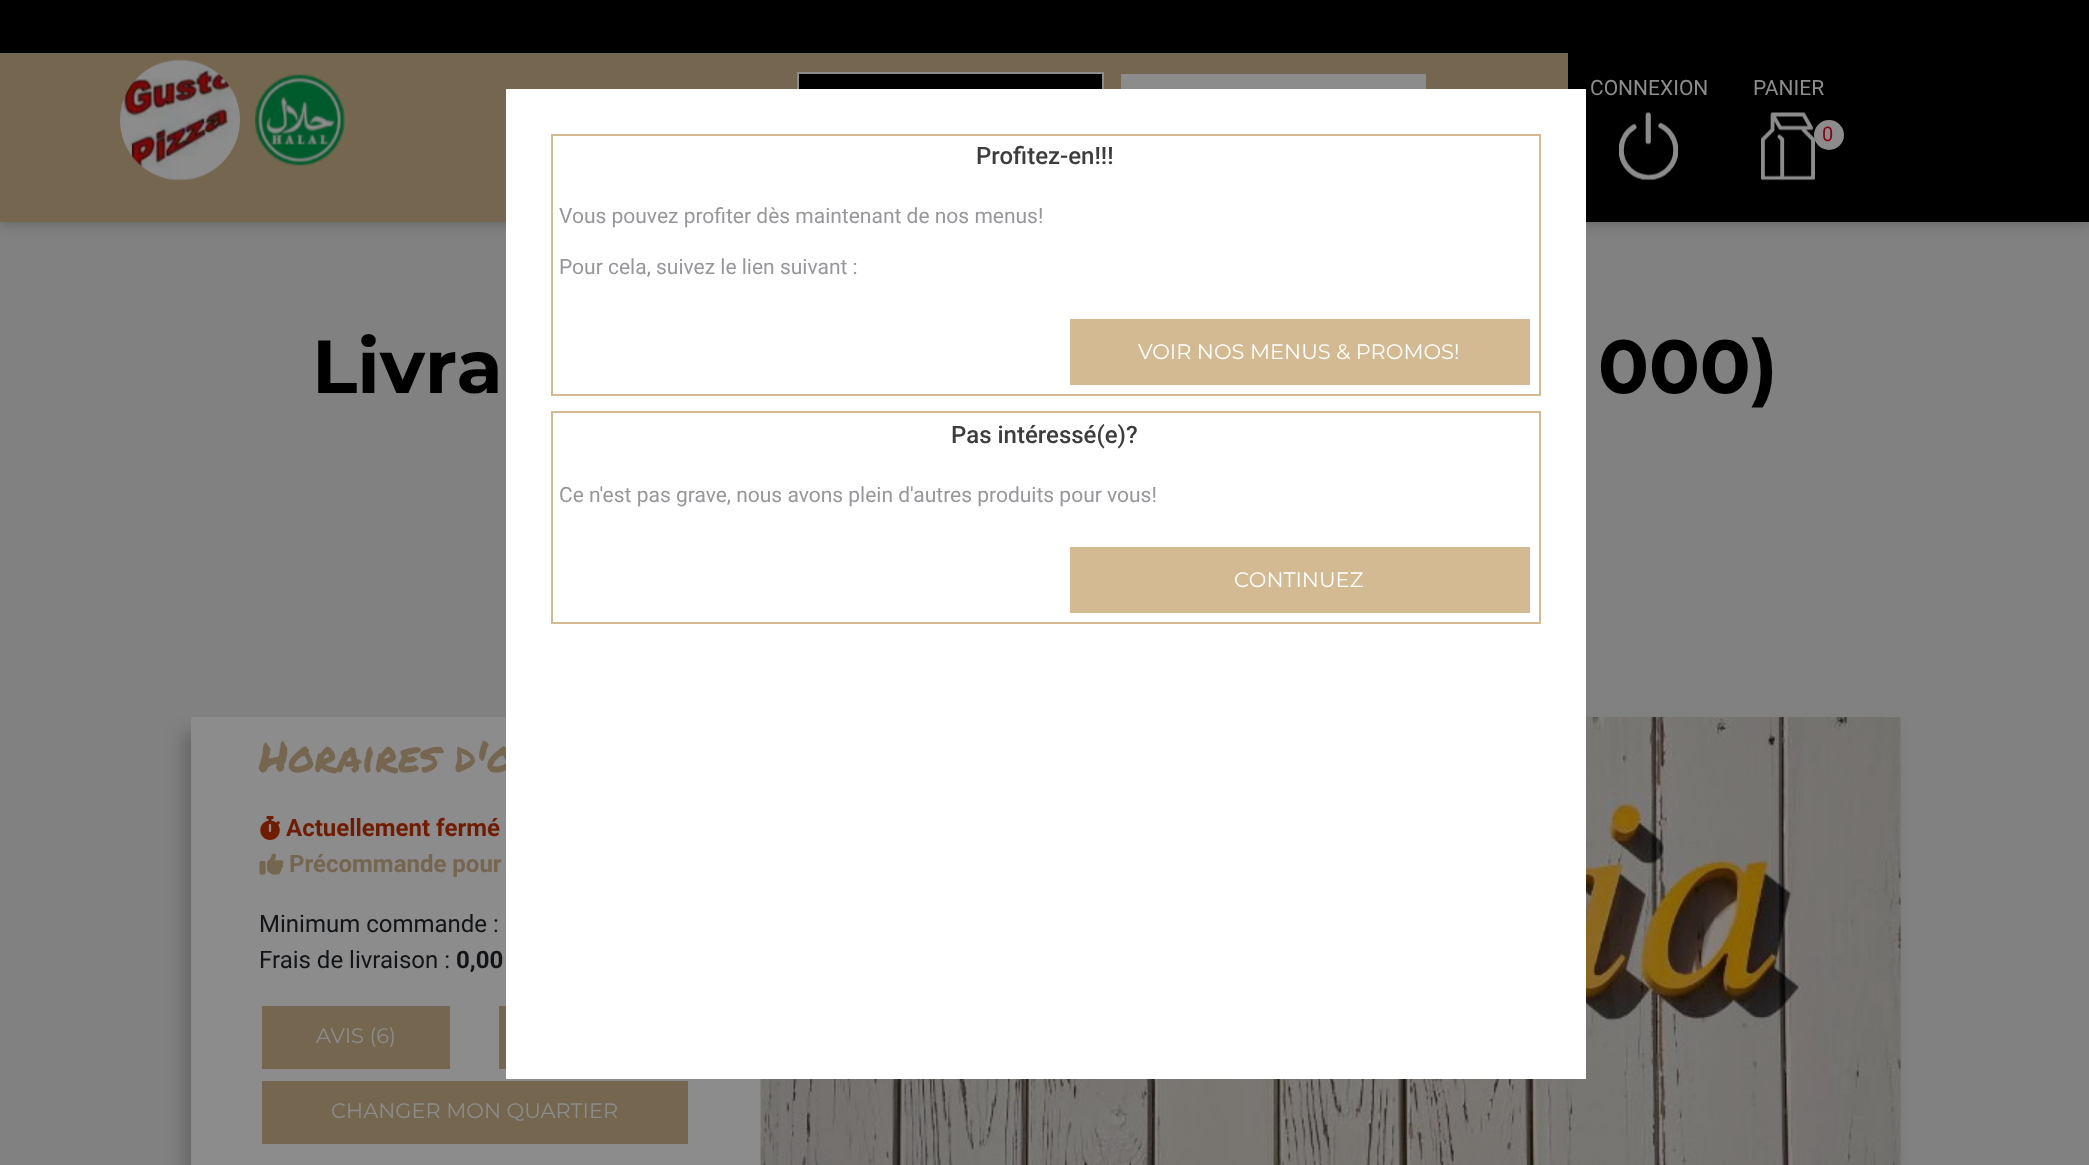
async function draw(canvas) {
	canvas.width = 2089;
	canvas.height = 1165;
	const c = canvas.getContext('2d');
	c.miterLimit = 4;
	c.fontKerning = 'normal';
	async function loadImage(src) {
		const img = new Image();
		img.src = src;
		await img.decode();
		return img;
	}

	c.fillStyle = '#818181';
	c.fillRect(0, 0, 2089, 1165);
	c.fillStyle = '#000';
	c.fillRect(0, 0, 2089, 53);
	c.fillStyle = '#00010145';
	c.filter = 'blur(7.5px)';
	c.beginPath();
	c.rect(0, 53, 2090, 169);
	c.fill();
	c.filter = 'none';
	c.fillStyle = '#756650';
	c.fillRect(0, 53, 1568, 169);
	c.drawImage(await loadImage('img1.png'), 120, 59, 120, 122);
	c.drawImage(await loadImage('img2.png'), 255, 74, 90, 92);
	c.fillStyle = '#000';
	c.fillRect(799, 74, 303, 15);
	c.strokeStyle = '#8c8c8c';
	c.lineWidth = 2;
	c.strokeRect(798, 73, 305, 66);
	c.fillStyle = '#8c8c8c';
	c.fillRect(1121, 74, 305, 15);
	c.fillStyle = '#000';
	c.fillRect(1568, 53, 521, 169);
	c.font = '21px Roboto';
	c.fillStyle = '#8c8c8c';
	c.fillText('CONNEXION', 1590, 95);
	c.drawImage(await loadImage('img3.png'), 1619, 112, 60, 69);
	c.fillText('PANIER', 1753, 95);
	c.drawImage(await loadImage('img4.png'), 1761, 112, 54, 69);
	c.beginPath();
	c.arc(1829, 135, 15, 0, 2 * Math.PI);
	c.fill();
	c.font = '20px Roboto';
	c.fillStyle = '#8c0017';
	c.fillText('0', 1822, 141);
	c.fillStyle = '#676767';
	c.filter = 'blur(7.5px)';
	c.beginPath();
	c.rect(183, 732, 1710, 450);
	c.fill();
	c.filter = 'none';
	c.fillStyle = '#8c8c8c';
	c.fillRect(191, 717, 570, 448);
	c.font = '42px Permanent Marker';
	c.fillStyle = '#756650';
	c.fillText('Horaires d\'o', 259, 772);
	c.drawImage(await loadImage('img7.png'), 760, 717, 1141, 448);
	c.fillStyle = '#fff';
	c.fillRect(506, 89, 1080, 990);
	c.strokeStyle = '#d4ba92';
	c.strokeRect(552, 135, 988, 260);
	c.font = '500 24px Roboto';
	c.fillStyle = '#3d3c3f';
	c.fillText('Profitez-en!!!', 976, 164);
	c.font = '21px Roboto';
	c.fillStyle = '#98969b';
	c.fillText('Vous pouvez profiter dès maintenant de nos menus!', 559, 223);
	c.fillText('Pour cela, suivez le lien suivant :', 559, 274);
	c.fillStyle = '#d4ba92';
	c.fillRect(1070, 319, 460, 66);
	c.font = '21px Montserrat';
	c.fillStyle = '#fff';
	c.fillText('VOIR NOS MENUS & PROMOS!', 1138, 359);
	c.strokeRect(552, 412, 988, 211);
	c.font = '500 24px Roboto';
	c.fillStyle = '#3d3c3f';
	c.fillText('Pas intéressé(e)?', 951, 443);
	c.font = '21px Roboto';
	c.fillStyle = '#98969b';
	c.fillText('Ce n\'est pas grave, nous avons plein d\'autres produits pour vous!', 559, 502);
	c.fillStyle = '#d4ba92';
	c.fillRect(1070, 547, 460, 66);
	c.font = '21px Montserrat';
	c.fillStyle = '#fff';
	c.fillText('CONTINUEZ', 1234, 587);
	c.font = 'bold 75px Montserrat';
	c.fillStyle = '#000';
	c.fillText('Livra', 312, 393);
	c.fillText('000)', 1598, 393);
	c.drawImage(await loadImage('img5.png'), 260, 816, 20, 24);
	c.font = 'bold 24px Roboto';
	c.fillStyle = '#701c00';
	c.fillText('Actuellement fermé', 286, 836);
	c.drawImage(await loadImage('img6.png'), 259, 853, 25, 22);
	c.fillStyle = '#756650';
	c.fillText('Précommande pour', 289, 872);
	c.font = '24px Roboto';
	c.fillStyle = '#121417';
	c.fillText('Minimum commande :', 259, 932);
	c.fillText('Frais de livraison :', 259, 968);
	c.font = 'bold 24px Roboto';
	c.fillText('0,00', 456, 968);
	c.fillStyle = '#756650';
	c.fillRect(262, 1006, 188, 63);
	c.font = '21px Montserrat';
	c.fillStyle = '#8c8c8c';
	c.fillText('AVIS (6)', 316, 1043);
	c.fillStyle = '#756650';
	c.fillRect(499, 1006, 7, 63);
	c.fillRect(262, 1081, 426, 63);
	c.fillStyle = '#8c8c8c';
	c.fillText('CHANGER MON QUARTIER', 331, 1118);
}

draw(document.querySelector('canvas'));
